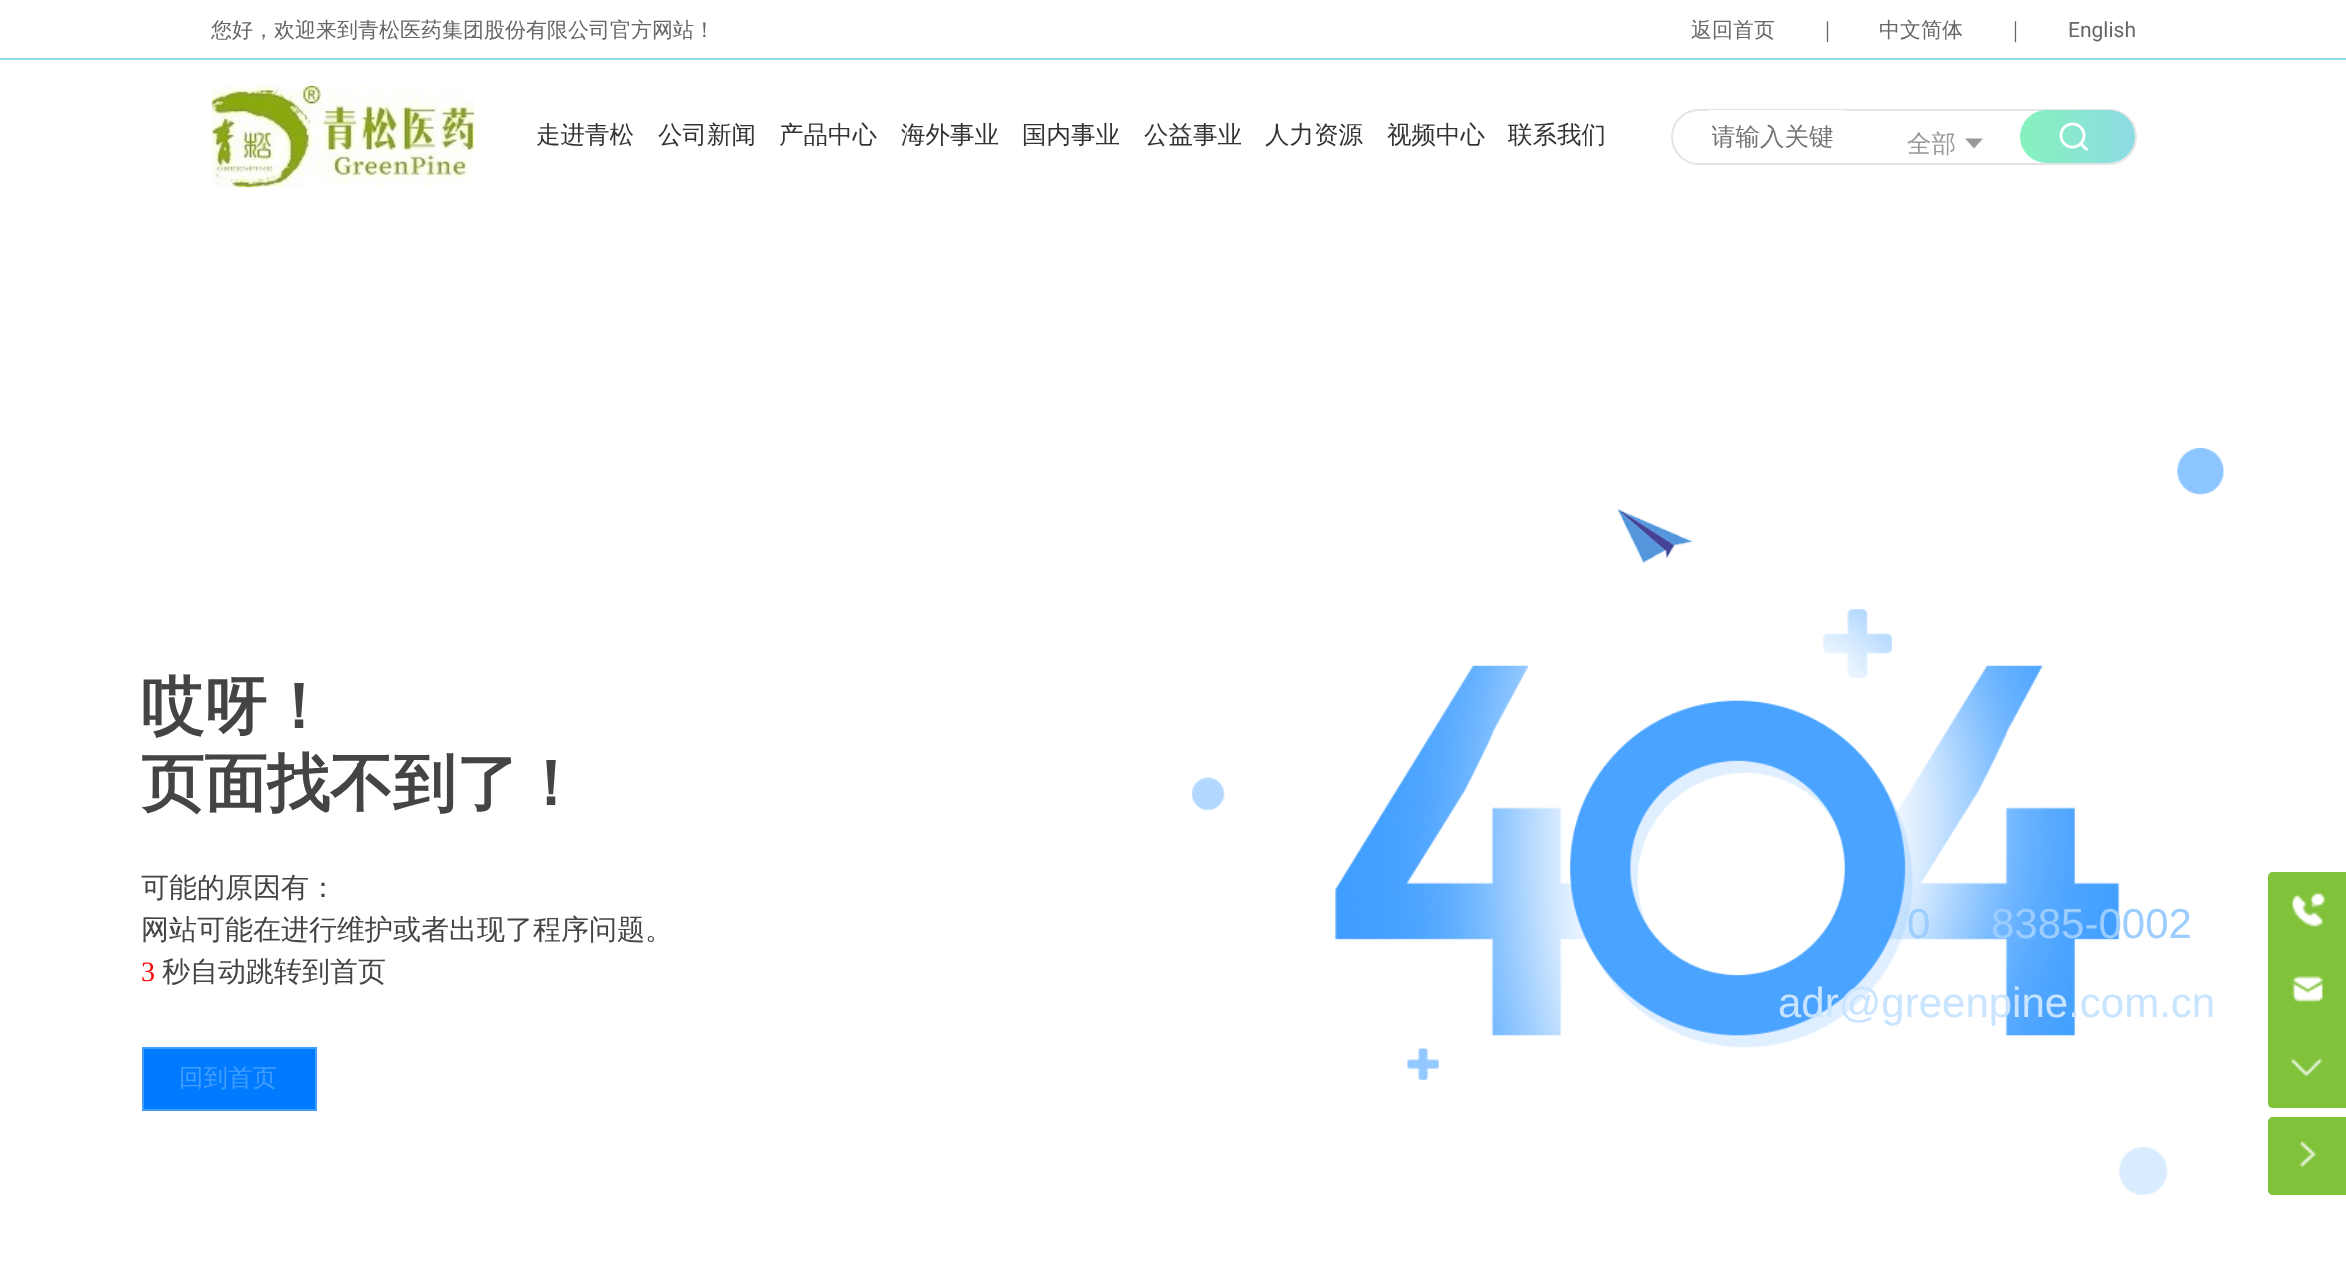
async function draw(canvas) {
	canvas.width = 2346;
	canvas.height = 1287;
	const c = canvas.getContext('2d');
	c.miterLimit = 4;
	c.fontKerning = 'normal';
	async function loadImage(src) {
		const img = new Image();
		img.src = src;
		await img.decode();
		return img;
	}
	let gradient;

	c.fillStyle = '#fff';
	c.fillRect(0, 0, 2346, 1287);
	c.font = '500 21px WenQuanYi Zen Hei';
	c.fillStyle = '#666';
	for (const [text, x, y] of [
		['您好，欢迎来到青松医药集团股份有限公司官方网站！', 211, 37],
		['返回首页', 1691, 37],
		['｜', 1817, 37],
		['中文简体', 1879, 37],
		['｜', 2005, 37],
	]) {
		c.fillText(text, x, y);
	}
	c.font = '21px Roboto';
	c.fillText('English', 2068, 37);
	c.fillStyle = '#8ededf';
	c.fillRect(0, 58, 2346, 2);
	c.drawImage(await loadImage('img1.png'), 211, 85, 264, 103);
	c.font = '500 24.5px WenQuanYi Zen Hei';
	c.fillStyle = '#333';
	for (const [text, x, y] of [
		['走进青松', 536, 143],
		['公司新闻', 658, 143],
		['产品中心', 779, 143],
		['海外事业', 901, 143],
		['国内事业', 1022, 143],
		['公益事业', 1144, 143],
		['人力资源', 1265, 143],
		['视频中心', 1387, 143],
		['联系我们', 1508, 143],
	]) {
		c.fillText(text, x, y);
	}
	c.beginPath();
	c.roundRect(1672, 110, 464, 54, 27);
	c.strokeStyle = '#e4e4e4';
	c.lineWidth = 2;
	c.stroke();
	c.fillStyle = '#fff';
	c.fillRect(1708, 110, 137, 1);
	c.save();
	c.beginPath();
	c.rect(1712, 123, 129, 31);
	c.clip();
	c.fillStyle = '#757575';
	c.fillText('请输入关键', 1711, 145);
	c.restore();
	c.fillStyle = '#999';
	c.fillText('全部', 1907, 152);
	c.beginPath();
	c.moveTo(1965, 138.5);
	c.lineTo(1974, 148.5);
	c.lineTo(1983, 138.5);
	c.closePath();
	c.fill();
	gradient = c.createLinearGradient(2020, 137, 2135, 137);
	gradient.addColorStop(0, '#86f2bd');
	gradient.addColorStop(1, '#8ddbe4');
	c.fillStyle = gradient;
	c.beginPath();
	c.roundRect(2020, 110, 115, 53, 26.5);
	c.fill();
	c.drawImage(await loadImage('img2.png'), 2059, 122, 29, 29);
	c.font = 'bold 63px WenQuanYi Zen Hei';
	c.fillStyle = '#444';
	c.fillText('哎呀！', 141, 728);
	c.fillText('页面找不到了！', 141, 805);
	c.font = '500 28px WenQuanYi Zen Hei';
	c.fillText('可能的原因有：', 141, 897);
	c.fillText('网站可能在进行维护或者出现了程序问题。', 141, 939);
	c.font = '28px Liberation Serif';
	c.fillStyle = '#f00';
	c.fillText('3', 141, 981);
	c.font = '500 28px WenQuanYi Zen Hei';
	c.fillStyle = '#444';
	c.fillText('秒自动跳转到首页', 162, 981);
	c.fillStyle = '#007bff';
	c.beginPath();
	c.rect(143, 1048, 173, 62);
	c.fill();
	c.strokeStyle = '#409eff';
	c.stroke();
	c.font = '500 24.5px WenQuanYi Zen Hei';
	c.fillStyle = '#409eff';
	c.fillText('回到首页', 179, 1086);
	c.drawImage(await loadImage('img3.png'), 1191, 448, 1033, 747);
	c.fillStyle = '#80c33b';
	c.beginPath();
	c.moveTo(2273, 872);
	c.lineTo(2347, 872);
	c.lineTo(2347, 1108);
	c.lineTo(2273, 1108);
	c.bezierCurveTo(2270, 1108, 2268, 1106, 2268, 1103);
	c.lineTo(2268, 877);
	c.bezierCurveTo(2268, 874, 2270, 872, 2273, 872);
	c.closePath();
	c.fill();
	c.font = '42px Liberation Sans';
	c.fillStyle = '#9ccdff';
	c.fillText('0', 1907, 938);
	c.fillText('8385-0002', 1991, 938);
	c.drawImage(await loadImage('img4.png'), 2292, 892, 34, 35);
	c.fillStyle = '#c9e4ff';
	c.fillText('adr@greenpine.com.cn', 1778, 1017);
	c.drawImage(await loadImage('img5.png'), 2292, 976, 32, 26);
	c.drawImage(await loadImage('img6.png'), 2290, 1058, 33, 19);
	c.fillStyle = '#80c33b';
	c.beginPath();
	c.moveTo(2273, 1117);
	c.lineTo(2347, 1117);
	c.lineTo(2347, 1195);
	c.lineTo(2273, 1195);
	c.bezierCurveTo(2270, 1195, 2268, 1193, 2268, 1190);
	c.lineTo(2268, 1122);
	c.bezierCurveTo(2268, 1119, 2270, 1117, 2273, 1117);
	c.closePath();
	c.fill();
	c.drawImage(await loadImage('img7.png'), 2299, 1140, 17, 28);
}

draw(document.querySelector('canvas'));
